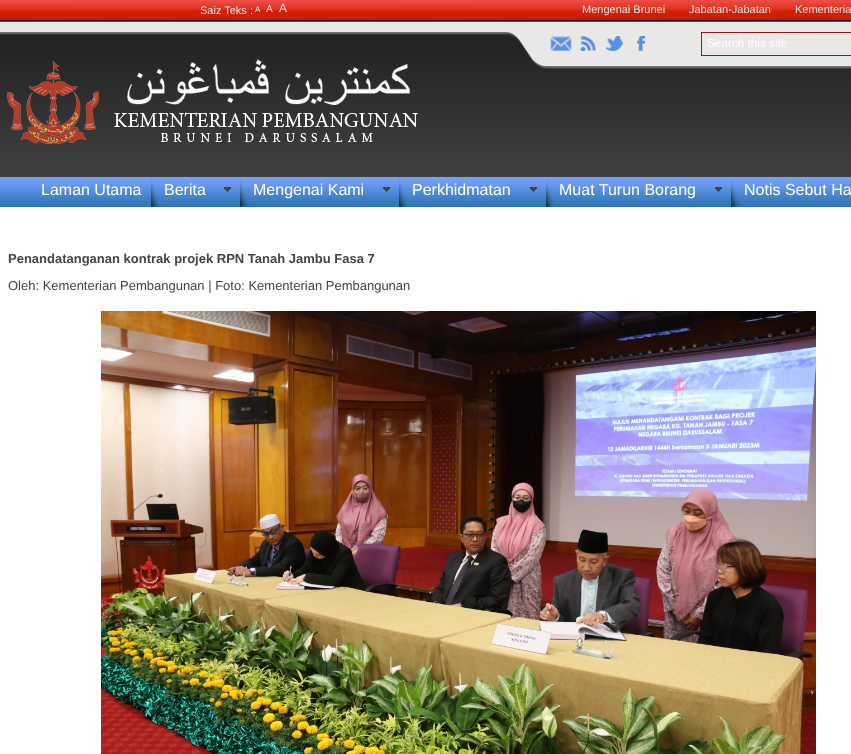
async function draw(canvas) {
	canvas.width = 851;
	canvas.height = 754;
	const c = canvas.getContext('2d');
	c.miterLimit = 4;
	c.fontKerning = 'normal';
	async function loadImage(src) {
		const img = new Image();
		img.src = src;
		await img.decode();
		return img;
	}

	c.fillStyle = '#fff';
	c.fillRect(0, 0, 851, 754);
	c.drawImage(await loadImage('img1.png'), 0, 0, 851, 20);
	c.fillStyle = '#160000';
	c.fillRect(0, 20, 851, 1);
	c.font = '11px Liberation Sans';
	c.fillStyle = '#e5e5e5';
	c.fillText('Saiz Teks :', 200, 14);
	c.font = '8px Liberation Sans';
	c.fillText('A', 255, 12);
	c.font = '10px Liberation Sans';
	c.fillText('A', 266, 12);
	c.font = '12px Liberation Sans';
	c.fillText('A', 279, 12);
	c.font = '11px Liberation Sans';
	for (const [text, x, y] of [
		['Mengenai Brunei', 582, 13],
		['Jabatan-Jabatan', 689, 13],
		['Kementeria', 795, 13],
	]) {
		c.fillText(text, x, y);
	}
	c.drawImage(await loadImage('img2.png'), 0, 22, 851, 155);
	c.fillStyle = '#7e3b3b';
	c.fillRect(0, 21, 851, 1);
	c.drawImage(await loadImage('img3.png'), 7, 59, 411, 85);
	c.drawImage(await loadImage('img4.png'), 506, 32, 345, 37);
	c.drawImage(await loadImage('img5.png'), 550, 36, 22, 15);
	c.drawImage(await loadImage('img6.png'), 580, 36, 16, 15);
	c.drawImage(await loadImage('img7.png'), 606, 36, 17, 15);
	c.drawImage(await loadImage('img8.png'), 637, 36, 8, 15);
	c.strokeStyle = '#8d1a1a';
	c.strokeRect(701.5, 32.5, 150, 23);
	c.font = '11.75px Liberation Sans';
	c.fillStyle = '#fff';
	c.fillText('Search this site', 707, 47);
	c.drawImage(await loadImage('img9.png'), 0, 177, 851, 30);
	c.drawImage(await loadImage('img10.png'), 151, 179, 9, 28);
	c.font = '16px Liberation Sans';
	c.fillText('Laman Utama', 41, 195);
	c.drawImage(await loadImage('img10.png'), 240, 179, 9, 28);
	c.fillText('Berita', 164, 195);
	c.drawImage(await loadImage('img11.png'), 224, 187, 7, 5);
	c.drawImage(await loadImage('img10.png'), 399, 179, 9, 28);
	c.fillText('Mengenai Kami', 253, 195);
	c.drawImage(await loadImage('img11.png'), 383, 187, 7, 5);
	c.drawImage(await loadImage('img10.png'), 546, 179, 9, 28);
	c.fillText('Perkhidmatan', 412, 195);
	c.drawImage(await loadImage('img11.png'), 530, 187, 7, 5);
	c.drawImage(await loadImage('img10.png'), 731, 179, 9, 28);
	c.fillText('Muat Turun Borang', 559, 195);
	c.drawImage(await loadImage('img11.png'), 715, 187, 7, 5);
	c.fillText('Notis Sebut Ha', 744, 195);
	c.font = 'bold 13px Liberation Sans';
	c.fillStyle = '#444';
	c.fillText('Penandatanganan kontrak projek RPN Tanah Jambu Fasa 7', 8, 263);
	c.font = '13px Liberation Sans';
	c.fillText('Oleh: Kementerian Pembangunan | Foto: Kementerian Pembangunan', 8, 290);
	c.drawImage(await loadImage('img12.png'), 101, 311, 715, 443);
}

draw(document.querySelector('canvas'));
